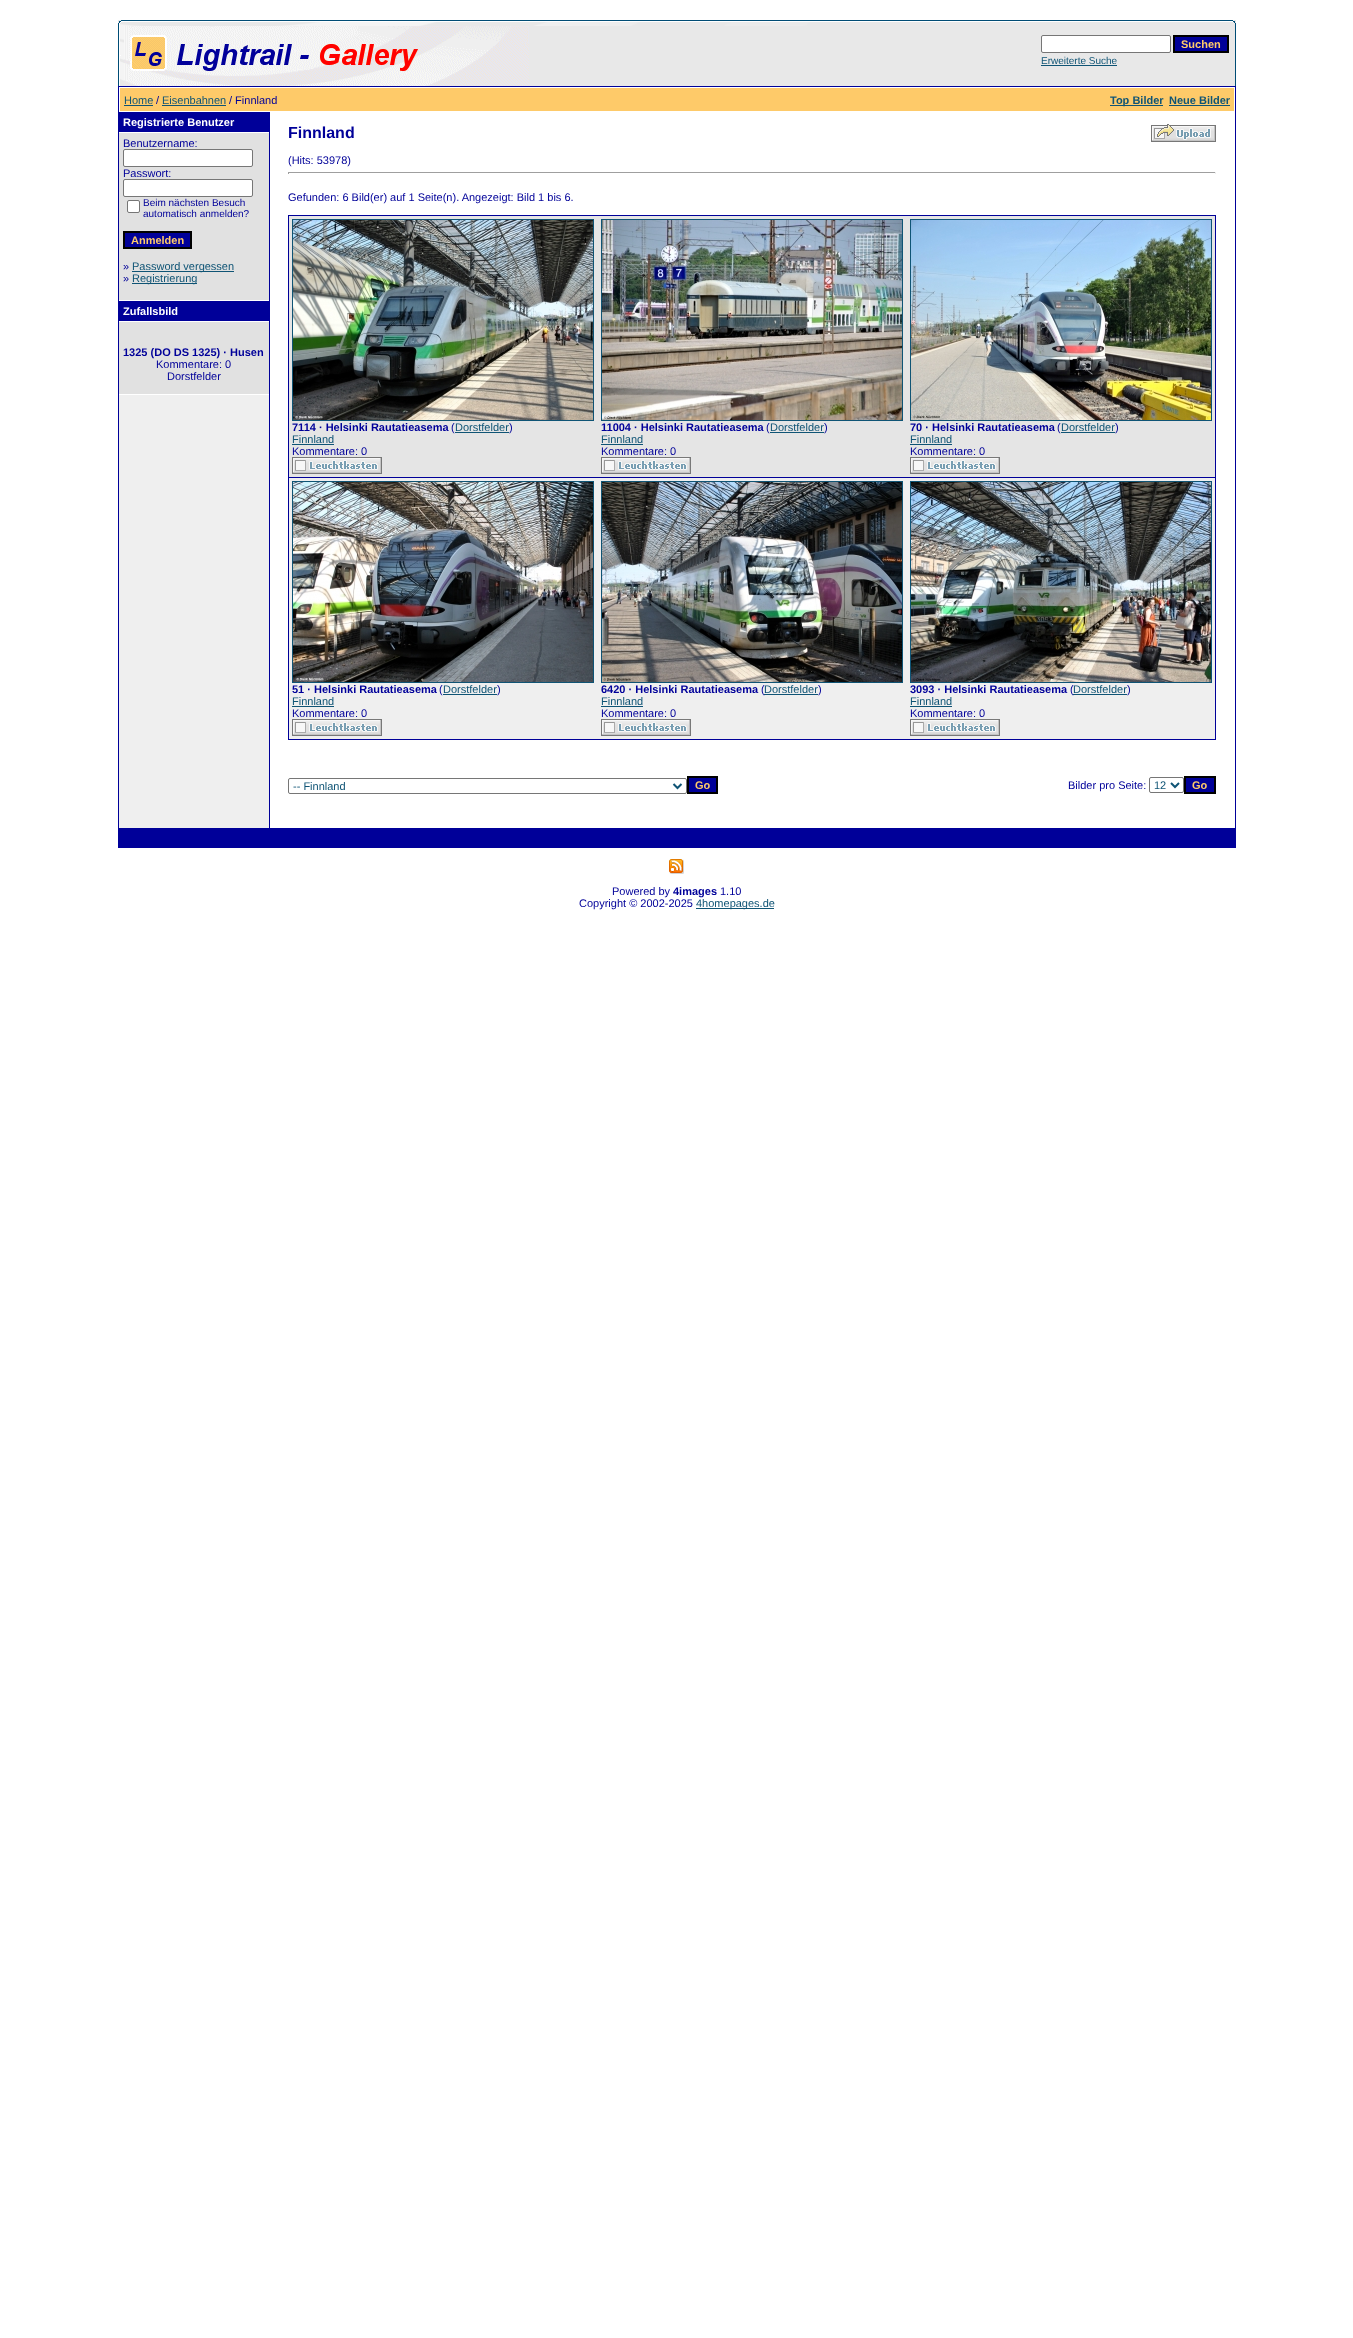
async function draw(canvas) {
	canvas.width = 1353;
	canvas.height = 2338;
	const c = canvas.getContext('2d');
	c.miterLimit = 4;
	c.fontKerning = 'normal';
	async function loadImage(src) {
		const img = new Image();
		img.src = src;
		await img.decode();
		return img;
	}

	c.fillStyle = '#fff';
	c.fillRect(0, 0, 1353, 2338);
	c.fillStyle = '#e8e8e8';
	c.fillRect(118, 20, 1118, 66);
	c.drawImage(await loadImage('img1.png'), 118, 20, 6, 6);
	c.drawImage(await loadImage('img2.png'), 124, 20, 1106, 6);
	c.drawImage(await loadImage('img3.png'), 1230, 20, 6, 6);
	c.drawImage(await loadImage('img4.png'), 118, 26, 6, 60);
	c.drawImage(await loadImage('img5.png'), 124, 26, 405, 60);
	c.fillStyle = '#fff';
	c.beginPath();
	c.roundRect(1041.5, 35.5, 129, 17, 1.5);
	c.fill();
	c.strokeStyle = '#767676';
	c.stroke();
	c.fillStyle = '#009';
	c.beginPath();
	c.rect(1174, 36, 54, 16);
	c.fill();
	c.strokeStyle = '#000';
	c.lineWidth = 2;
	c.stroke();
	c.font = 'bold 11px Liberation Sans';
	c.fillStyle = '#feca69';
	c.fillText('Suchen', 1181, 48);
	c.font = '10px Liberation Sans';
	c.fillStyle = '#0f5475';
	c.fillText('Erweiterte Suche', 1041, 64);
	for (const [x, y, w, h, color] of [
		[1041, 65, 76, 1, '#0f5475'],
		[1235, 26, 1, 60, '#004c75'],
		[118, 86, 1118, 762, '#009'],
		[119, 87, 1116, 741, '#fff'],
		[120, 88, 1114, 23, '#feca69'],
	]) {
		c.fillStyle = color;
		c.fillRect(x, y, w, h);
	}
	c.font = '11px Liberation Sans';
	c.fillStyle = '#0f5475';
	c.fillText('Home', 124, 104);
	c.fillRect(124, 105, 29, 1);
	c.fillStyle = '#009';
	c.fillText('/', 156, 104);
	c.fillStyle = '#0f5475';
	c.fillText('Eisenbahnen', 162, 104);
	c.fillRect(162, 105, 64, 1);
	c.fillStyle = '#009';
	c.fillText('/ Finnland', 229, 104);
	c.fillStyle = '#0f5475';
	c.fillRect(1110, 105, 53, 1);
	c.font = 'bold 11px Liberation Sans';
	c.fillText('Top Bilder', 1110, 104);
	c.fillText('Neue Bilder', 1169, 104);
	for (const [x, y, w, h, color] of [
		[1169, 105, 61, 1, '#0f5475'],
		[119, 395, 150, 433, '#efefef'],
		[119, 112, 150, 20, '#009'],
	]) {
		c.fillStyle = color;
		c.fillRect(x, y, w, h);
	}
	c.fillStyle = '#fff';
	c.fillText('Registrierte Benutzer', 123, 126);
	c.fillStyle = '#e1e1e1';
	c.fillRect(119, 133, 150, 167);
	c.font = '11px Liberation Sans';
	c.fillStyle = '#009';
	c.fillText('Benutzername:', 123, 147);
	c.fillStyle = '#fff';
	c.beginPath();
	c.roundRect(123.5, 149.5, 129, 17, 1.5);
	c.fill();
	c.strokeStyle = '#767676';
	c.lineWidth = 1;
	c.stroke();
	c.fillStyle = '#009';
	c.fillText('Passwort:', 123, 177);
	c.fillStyle = '#fff';
	c.beginPath();
	c.roundRect(123.5, 179.5, 129, 17, 1.5);
	c.fill();
	c.stroke();
	c.beginPath();
	c.roundRect(127.5, 200.5, 12, 12, 1.5);
	c.fill();
	c.stroke();
	c.font = '10px Liberation Sans';
	c.fillStyle = '#009';
	c.fillText('Beim nächsten Besuch', 143, 206);
	c.fillText('automatisch anmelden?', 143, 217);
	c.beginPath();
	c.rect(124, 232, 67, 16);
	c.fill();
	c.strokeStyle = '#000';
	c.lineWidth = 2;
	c.stroke();
	c.font = 'bold 11px Liberation Sans';
	c.fillStyle = '#feca69';
	c.fillText('Anmelden', 131, 244);
	c.font = '11px Liberation Sans';
	c.fillStyle = '#009';
	c.fillText('»', 123, 270);
	c.fillStyle = '#0f5475';
	c.fillRect(132, 271, 102, 1);
	c.fillText('Password vergessen', 132, 270);
	c.fillStyle = '#009';
	c.fillText('»', 123, 282);
	c.fillStyle = '#0f5475';
	c.fillRect(132, 283, 65, 1);
	c.fillText('Registrierung', 132, 282);
	c.fillStyle = '#009';
	c.fillRect(119, 301, 150, 20);
	c.font = 'bold 11px Liberation Sans';
	c.fillStyle = '#fff';
	c.fillText('Zufallsbild', 123, 315);
	c.fillStyle = '#e1e1e1';
	c.fillRect(119, 322, 150, 72);
	c.fillStyle = '#009';
	c.fillText('1325 (DO DS 1325) · Husen', 123, 356);
	c.font = '11px Liberation Sans';
	c.fillText('Kommentare: 0', 156, 368);
	c.fillText('Dorstfelder', 167, 380);
	c.fillRect(269, 112, 1, 716);
	c.font = 'bold 16px Liberation Sans';
	c.fillText('Finnland', 288, 138);
	c.drawImage(await loadImage('img6.png'), 1151, 124, 65, 18);
	c.font = '11px Liberation Sans';
	c.fillText('(Hits: 53978)', 288, 164);
	for (const [x, y, w, h, color] of [
		[288, 172, 928, 1, '#9f9f9f'],
		[1215, 172, 1, 2, '#eee'],
		[288, 172, 1, 2, '#9f9f9f'],
	]) {
		c.fillStyle = color;
		c.fillRect(x, y, w, h);
	}
	c.fillStyle = '#009';
	c.fillText('Gefunden: 6 Bild(er) auf 1 Seite(n). Angezeigt: Bild 1 bis 6.', 288, 201);
	c.fillRect(288, 215, 928, 525);
	c.fillStyle = '#e5e5e5';
	c.fillRect(289, 216, 926, 261);
	c.strokeStyle = '#0f5475';
	c.lineWidth = 1;
	c.strokeRect(292.5, 219.5, 301, 201);
	c.drawImage(await loadImage('img7.png'), 293, 220, 300, 200);
	c.font = 'bold 11px Liberation Sans';
	c.fillStyle = '#009';
	c.fillText('7114 · Helsinki Rautatieasema', 292, 431);
	c.font = '11px Liberation Sans';
	c.fillText('(', 451, 431);
	c.fillStyle = '#0f5475';
	c.fillText('Dorstfelder', 455, 431);
	c.fillRect(455, 432, 54, 1);
	c.fillStyle = '#009';
	c.fillText(')', 509, 431);
	c.fillStyle = '#0f5475';
	c.fillText('Finnland', 292, 443);
	c.fillRect(292, 444, 42, 1);
	c.fillStyle = '#009';
	c.fillText('Kommentare: 0', 292, 455);
	c.drawImage(await loadImage('img8.png'), 292, 457, 90, 17);
	c.strokeRect(601.5, 219.5, 301, 201);
	c.drawImage(await loadImage('img9.png'), 602, 220, 300, 200);
	c.font = 'bold 11px Liberation Sans';
	c.fillText('11004 · Helsinki Rautatieasema', 601, 431);
	c.font = '11px Liberation Sans';
	c.fillText('(', 766, 431);
	c.fillStyle = '#0f5475';
	c.fillText('Dorstfelder', 770, 431);
	c.fillRect(770, 432, 54, 1);
	c.fillStyle = '#009';
	c.fillText(')', 824, 431);
	c.fillStyle = '#0f5475';
	c.fillText('Finnland', 601, 443);
	c.fillRect(601, 444, 42, 1);
	c.fillStyle = '#009';
	c.fillText('Kommentare: 0', 601, 455);
	c.drawImage(await loadImage('img8.png'), 601, 457, 90, 17);
	c.strokeRect(910.5, 219.5, 301, 201);
	c.drawImage(await loadImage('img10.png'), 911, 220, 300, 200);
	c.font = 'bold 11px Liberation Sans';
	c.fillText('70 · Helsinki Rautatieasema', 910, 431);
	c.font = '11px Liberation Sans';
	c.fillText('(', 1057, 431);
	c.fillStyle = '#0f5475';
	c.fillText('Dorstfelder', 1061, 431);
	c.fillRect(1061, 432, 54, 1);
	c.fillStyle = '#009';
	c.fillText(')', 1115, 431);
	c.fillStyle = '#0f5475';
	c.fillText('Finnland', 910, 443);
	c.fillRect(910, 444, 42, 1);
	c.fillStyle = '#009';
	c.fillText('Kommentare: 0', 910, 455);
	c.drawImage(await loadImage('img8.png'), 910, 457, 90, 17);
	c.fillStyle = '#efefef';
	c.fillRect(289, 478, 926, 261);
	c.strokeRect(292.5, 481.5, 301, 201);
	c.drawImage(await loadImage('img11.png'), 293, 482, 300, 200);
	c.font = 'bold 11px Liberation Sans';
	c.fillStyle = '#009';
	c.fillText('51 · Helsinki Rautatieasema', 292, 693);
	c.font = '11px Liberation Sans';
	c.fillText('(', 439, 693);
	c.fillStyle = '#0f5475';
	c.fillText('Dorstfelder', 443, 693);
	c.fillRect(443, 694, 54, 1);
	c.fillStyle = '#009';
	c.fillText(')', 497, 693);
	c.fillStyle = '#0f5475';
	c.fillText('Finnland', 292, 705);
	c.fillRect(292, 706, 42, 1);
	c.fillStyle = '#009';
	c.fillText('Kommentare: 0', 292, 717);
	c.drawImage(await loadImage('img8.png'), 292, 719, 90, 17);
	c.strokeRect(601.5, 481.5, 301, 201);
	c.drawImage(await loadImage('img12.png'), 602, 482, 300, 200);
	c.font = 'bold 11px Liberation Sans';
	c.fillText('6420 · Helsinki Rautatieasema', 601, 693);
	c.font = '11px Liberation Sans';
	c.fillText('(', 761, 693);
	c.fillStyle = '#0f5475';
	c.fillText('Dorstfelder', 764, 693);
	c.fillRect(764, 694, 54, 1);
	c.fillStyle = '#009';
	c.fillText(')', 818, 693);
	c.fillStyle = '#0f5475';
	c.fillText('Finnland', 601, 705);
	c.fillRect(601, 706, 42, 1);
	c.fillStyle = '#009';
	c.fillText('Kommentare: 0', 601, 717);
	c.drawImage(await loadImage('img8.png'), 601, 719, 90, 17);
	c.strokeRect(910.5, 481.5, 301, 201);
	c.drawImage(await loadImage('img13.png'), 911, 482, 300, 200);
	c.font = 'bold 11px Liberation Sans';
	c.fillText('3093 · Helsinki Rautatieasema', 910, 693);
	c.font = '11px Liberation Sans';
	c.fillText('(', 1070, 693);
	c.fillStyle = '#0f5475';
	c.fillText('Dorstfelder', 1073, 693);
	c.fillRect(1073, 694, 54, 1);
	c.fillStyle = '#009';
	c.fillText(')', 1127, 693);
	c.fillStyle = '#0f5475';
	c.fillText('Finnland', 910, 705);
	c.fillRect(910, 706, 42, 1);
	c.fillStyle = '#009';
	c.fillText('Kommentare: 0', 910, 717);
	c.drawImage(await loadImage('img8.png'), 910, 719, 90, 17);
	c.beginPath();
	c.roundRect(288.5, 778.5, 398, 15, 1.5);
	c.strokeStyle = '#767676';
	c.stroke();
	c.beginPath();
	c.moveTo(673.5, 784);
	c.lineTo(677.5, 788);
	c.lineTo(681.5, 784);
	c.strokeStyle = '#0f5475';
	c.lineWidth = 2;
	c.stroke();
	c.fillStyle = '#0f5475';
	c.fillText('-- Finnland', 293, 790);
	c.fillStyle = '#009';
	c.beginPath();
	c.rect(688, 777, 29, 16);
	c.fill();
	c.strokeStyle = '#000';
	c.stroke();
	c.font = 'bold 11px Liberation Sans';
	c.fillStyle = '#feca69';
	c.fillText('Go', 695, 789);
	c.font = '11px Liberation Sans';
	c.fillStyle = '#009';
	c.fillText('Bilder pro Seite:', 1068, 789);
	c.beginPath();
	c.roundRect(1149.5, 777.5, 34, 15, 1.5);
	c.strokeStyle = '#767676';
	c.lineWidth = 1;
	c.stroke();
	c.beginPath();
	c.moveTo(1171, 783);
	c.lineTo(1175, 787);
	c.lineTo(1179, 783);
	c.strokeStyle = '#0f5475';
	c.lineWidth = 2;
	c.stroke();
	c.fillStyle = '#0f5475';
	c.fillText('12', 1154, 789);
	c.fillStyle = '#009';
	c.beginPath();
	c.rect(1185, 777, 30, 16);
	c.fill();
	c.strokeStyle = '#000';
	c.stroke();
	c.font = 'bold 11px Liberation Sans';
	c.fillStyle = '#feca69';
	c.fillText('Go', 1192, 789);
	c.fillStyle = '#00009c';
	c.fillRect(118, 845, 3, 3);
	c.fillRect(1233, 845, 3, 3);
	c.drawImage(await loadImage('img14.png'), 669, 859, 15, 15);
	c.font = '11px Liberation Sans';
	c.fillStyle = '#009';
	c.fillText('Powered by', 612, 895);
	c.font = 'bold 11px Liberation Sans';
	c.fillText('4images', 673, 895);
	c.font = '11px Liberation Sans';
	c.fillText('1.10', 720, 895);
	c.fillText('Copyright © 2002-2025', 579, 907);
	c.fillStyle = '#0f5475';
	c.fillRect(696, 908, 78, 1);
	c.fillText('4homepages.de', 696, 907);
}

draw(document.querySelector('canvas'));
